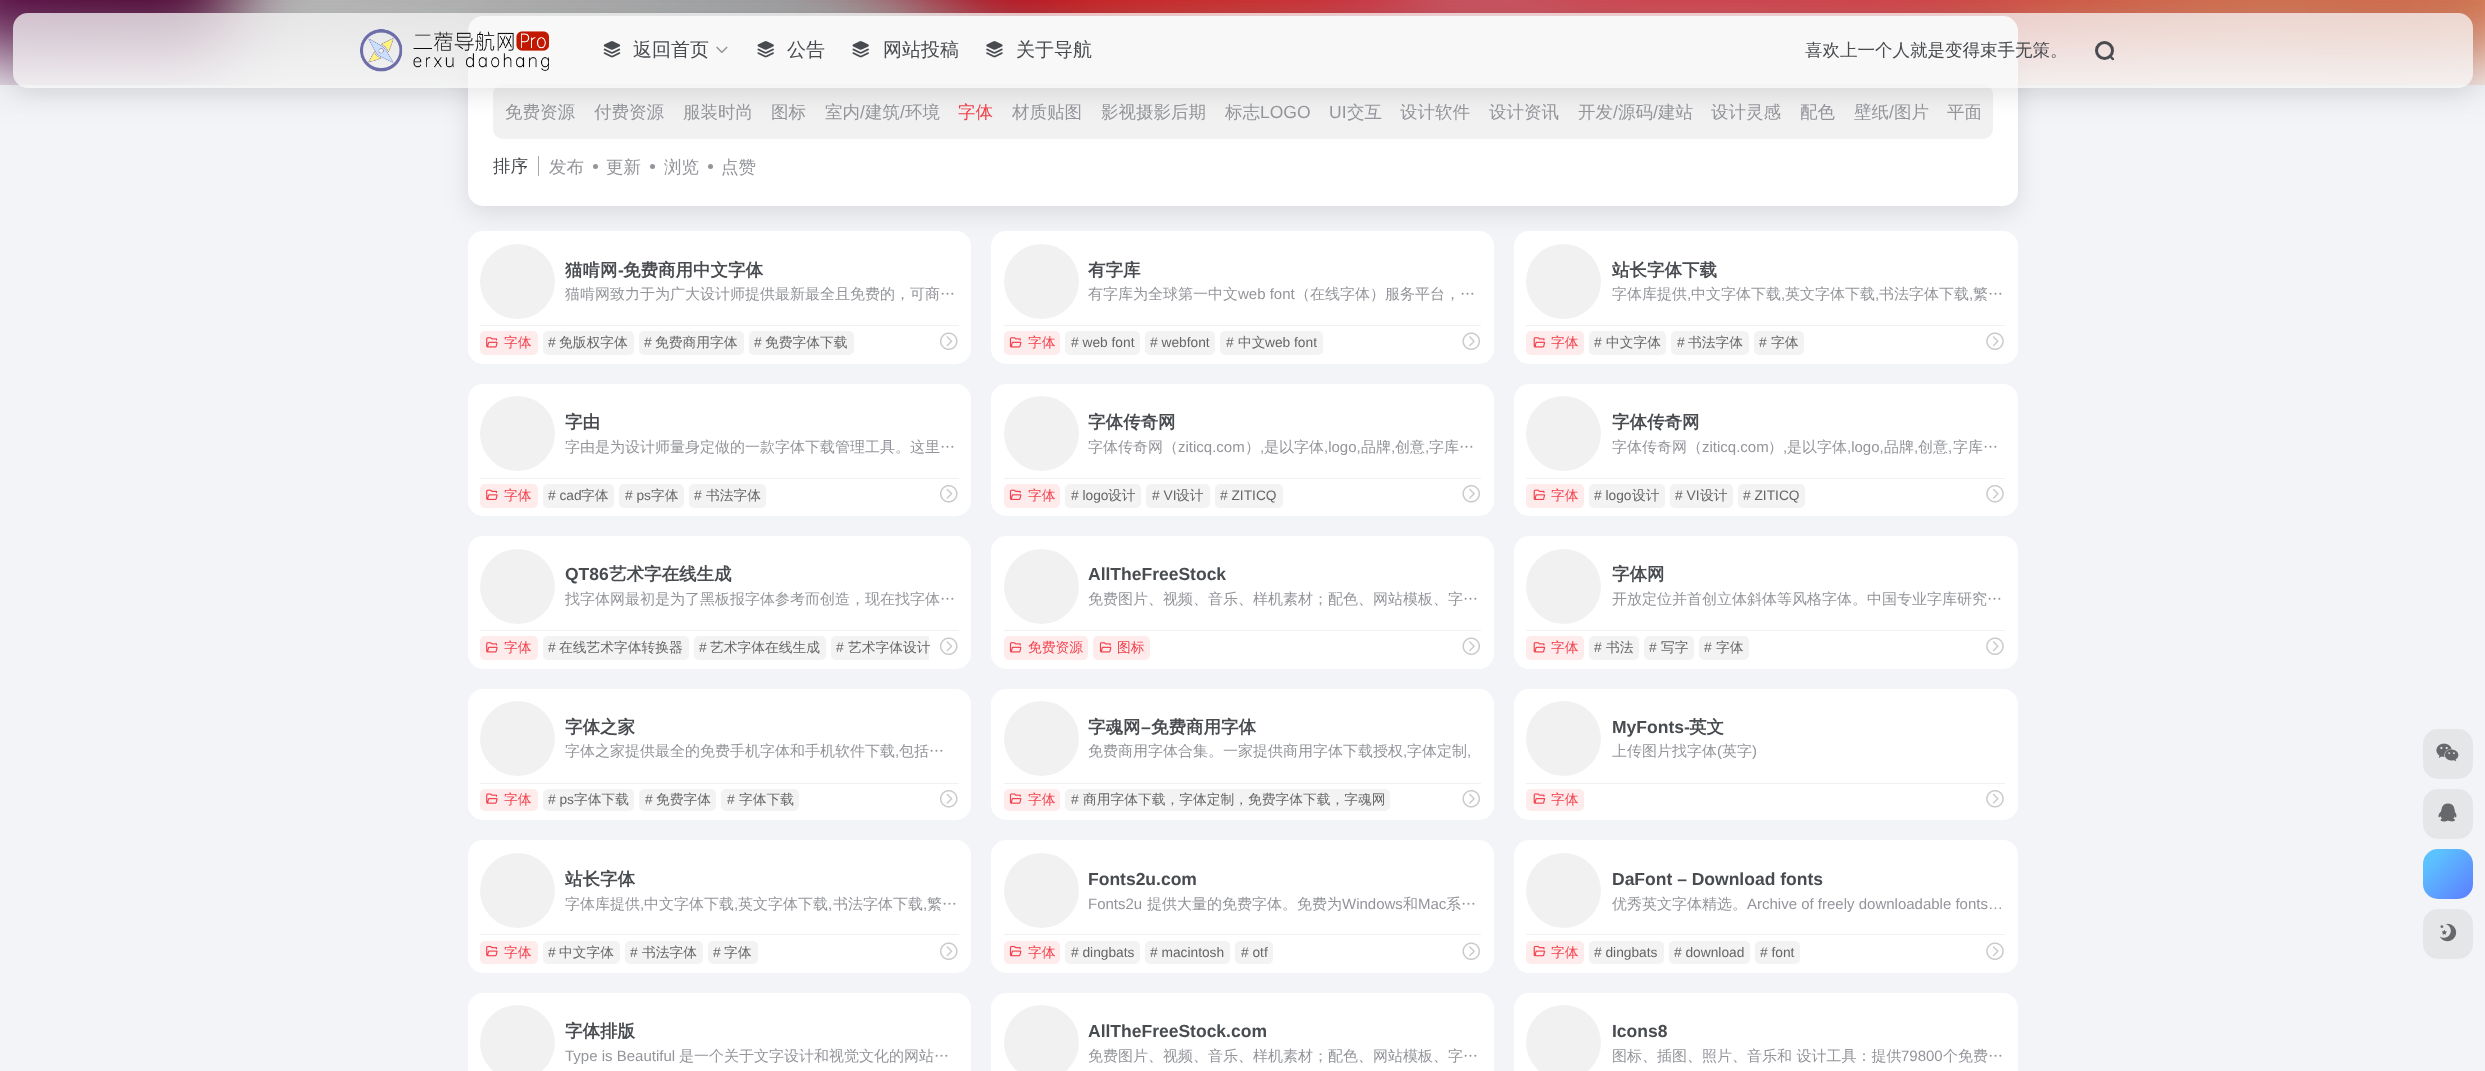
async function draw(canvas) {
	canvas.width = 2485;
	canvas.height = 1071;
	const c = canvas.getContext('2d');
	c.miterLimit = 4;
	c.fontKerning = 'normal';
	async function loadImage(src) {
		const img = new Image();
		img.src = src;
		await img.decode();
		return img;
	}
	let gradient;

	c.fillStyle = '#f2f4f7';
	c.fillRect(0, 0, 2485, 1071);
	c.drawImage(await loadImage('img1.png'), 0, 0, 2485, 85);
	c.fillStyle = '#00000033';
	c.filter = 'blur(37.5px)';
	c.beginPath();
	c.rect(-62, -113, 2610, 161);
	c.fill();
	c.filter = 'none';
	c.fillStyle = '#0000001a';
	c.filter = 'blur(12.5px)';
	c.beginPath();
	c.roundRect(468, 23, 1550, 190, 15);
	c.fill();
	c.filter = 'none';
	c.fillStyle = '#fff';
	c.beginPath();
	c.roundRect(468, 16, 1550, 190, 15);
	c.fill();
	c.fillStyle = '#f1f1f1';
	c.beginPath();
	c.roundRect(493, 84, 1500, 55, 10);
	c.fill();
	c.save();
	c.beginPath();
	c.moveTo(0, 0);
	c.lineTo(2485, 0);
	c.lineTo(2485, 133);
	c.lineTo(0, 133);
	c.closePath();
	c.moveTo(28, 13);
	c.lineTo(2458, 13);
	c.bezierCurveTo(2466.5, 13, 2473, 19.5, 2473, 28);
	c.lineTo(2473, 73);
	c.bezierCurveTo(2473, 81.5, 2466.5, 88, 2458, 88);
	c.lineTo(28, 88);
	c.bezierCurveTo(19.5, 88, 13, 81.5, 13, 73);
	c.lineTo(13, 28);
	c.bezierCurveTo(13, 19.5, 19.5, 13, 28, 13);
	c.closePath();
	c.clip('evenodd');
	c.fillStyle = '#0000001a';
	c.filter = 'blur(12.5px)';
	c.beginPath();
	c.roundRect(13, 19, 2460, 75, 15);
	c.fill();
	c.filter = 'none';
	c.restore();
	c.fillStyle = '#f5f5f5bf';
	c.beginPath();
	c.roundRect(13, 13, 2460, 75, 15);
	c.fill();
	c.drawImage(await loadImage('img2.png'), 360, 29, 189, 43);
	c.drawImage(await loadImage('img3.png'), 603, 41, 18, 17);
	c.font = '500 19px WenQuanYi Zen Hei';
	c.fillStyle = '#484b4f';
	c.fillText('返回首页', 633, 56);
	c.drawImage(await loadImage('img4.png'), 716, 46, 12, 7);
	c.drawImage(await loadImage('img5.png'), 757, 41, 17, 17);
	c.fillText('公告', 787, 56);
	c.drawImage(await loadImage('img6.png'), 852, 41, 17, 17);
	c.fillText('网站投稿', 883, 56);
	c.drawImage(await loadImage('img7.png'), 986, 41, 17, 17);
	c.fillText('关于导航', 1016, 56);
	c.font = '500 17.5px WenQuanYi Zen Hei';
	c.fillText('喜欢上一个人就是变得束手无策。', 1805, 56);
	c.beginPath();
	c.arc(2104.5, 50.5, 8, 0, 2 * Math.PI);
	c.strokeStyle = '#484b4f';
	c.lineWidth = 3;
	c.stroke();
	c.beginPath();
	c.moveTo(2112, 56.5);
	c.lineTo(2114, 58.5);
	c.bezierCurveTo(2114.5, 60.5, 2112.5, 60.5, 2111.5, 59.5);
	c.lineTo(2110, 57.5);
	c.bezierCurveTo(2109.5, 56.5, 2111, 55.5, 2112, 56.5);
	c.closePath();
	c.fill();
	c.fillStyle = '#93959a';
	for (const [text, x, y] of [
		['免费资源', 505, 118],
		['付费资源', 594, 118],
		['服装时尚', 683, 118],
		['图标', 771, 118],
		['室内', 825, 118],
	]) {
		c.fillText(text, x, y);
	}
	c.font = '17.5px Liberation Sans';
	c.fillText('/', 860, 118);
	c.font = '500 17.5px WenQuanYi Zen Hei';
	c.fillText('建筑', 865, 118);
	c.font = '17.5px Liberation Sans';
	c.fillText('/', 900, 118);
	c.font = '500 17.5px WenQuanYi Zen Hei';
	c.fillText('环境', 905, 118);
	c.fillStyle = '#f1404b';
	c.fillText('字体', 958, 118);
	c.fillStyle = '#93959a';
	for (const [text, x, y] of [
		['材质贴图', 1012, 118],
		['影视摄影后期', 1101, 118],
		['标志', 1225, 118],
	]) {
		c.fillText(text, x, y);
	}
	c.font = '17.5px Liberation Sans';
	c.fillText('LOGO', 1260, 118);
	c.fillText('UI', 1329, 118);
	c.font = '500 17.5px WenQuanYi Zen Hei';
	for (const [text, x, y] of [
		['交互', 1347, 118],
		['设计软件', 1400, 118],
		['设计资讯', 1489, 118],
		['开发', 1578, 118],
	]) {
		c.fillText(text, x, y);
	}
	c.font = '17.5px Liberation Sans';
	c.fillText('/', 1613, 118);
	c.font = '500 17.5px WenQuanYi Zen Hei';
	c.fillText('源码', 1618, 118);
	c.font = '17.5px Liberation Sans';
	c.fillText('/', 1653, 118);
	c.font = '500 17.5px WenQuanYi Zen Hei';
	for (const [text, x, y] of [
		['建站', 1658, 118],
		['设计灵感', 1711, 118],
		['配色', 1800, 118],
		['壁纸', 1854, 118],
	]) {
		c.fillText(text, x, y);
	}
	c.font = '17.5px Liberation Sans';
	c.fillText('/', 1889, 118);
	c.font = '500 17.5px WenQuanYi Zen Hei';
	c.fillText('图片', 1894, 118);
	c.save();
	c.beginPath();
	c.rect(505, 96, 1475, 30);
	c.clip();
	c.fillText('平面', 1947, 118);
	c.restore();
	c.fillStyle = '#484b4f';
	c.fillText('排序', 493, 172);
	c.fillStyle = '#a9aaae';
	c.fillRect(538, 156, 1, 20);
	c.fillStyle = '#93959a';
	c.fillText('发布', 549, 173);
	c.beginPath();
	c.arc(595.5, 166.5, 2.5, 0, 2 * Math.PI);
	c.fill();
	c.fillText('更新', 606, 173);
	c.beginPath();
	c.arc(652.5, 166.5, 2.5, 0, 2 * Math.PI);
	c.fill();
	c.fillText('浏览', 664, 173);
	c.beginPath();
	c.arc(710.5, 166.5, 2.5, 0, 2 * Math.PI);
	c.fill();
	c.fillText('点赞', 721, 173);
	c.fillStyle = '#fff';
	c.beginPath();
	c.roundRect(468, 231, 503, 133, 15);
	c.fill();
	c.fillStyle = '#f1f1f1';
	c.beginPath();
	c.arc(517.5, 281.5, 37.5, 0, 2 * Math.PI);
	c.fill();
	c.font = 'bold 17.5px WenQuanYi Zen Hei';
	c.fillStyle = '#484b4f';
	c.fillText('猫啃网', 565, 276);
	c.font = 'bold 17.5px Liberation Sans';
	c.fillText('-', 618, 276);
	c.font = 'bold 17.5px WenQuanYi Zen Hei';
	c.fillText('免费商用中文字体', 623, 276);
	c.font = '500 15px WenQuanYi Zen Hei';
	c.fillStyle = '#93959a';
	c.fillText('猫啃网致力于为广大设计师提供最新最全且免费的，可商…', 565, 299);
	c.fillStyle = '#f1f1f1';
	c.fillRect(480, 325, 479, 1);
	c.fillStyle = '#feeced';
	c.beginPath();
	c.roundRect(480, 331, 58, 24, 5);
	c.fill();
	c.drawImage(await loadImage('img8.png'), 486, 337, 12, 11);
	c.font = '500 13.75px WenQuanYi Zen Hei';
	c.fillStyle = '#f1404b';
	c.fillText('字体', 504, 347);
	c.fillStyle = '#f3f3f3';
	c.beginPath();
	c.roundRect(543, 331, 91, 24, 5);
	c.fill();
	c.font = '13.75px Liberation Sans';
	c.fillStyle = '#666';
	c.fillText('#', 548, 347);
	c.font = '500 13.75px WenQuanYi Zen Hei';
	c.fillText('免版权字体', 559, 347);
	c.fillStyle = '#f3f3f3';
	c.beginPath();
	c.roundRect(639, 331, 105, 24, 5);
	c.fill();
	c.font = '13.75px Liberation Sans';
	c.fillStyle = '#666';
	c.fillText('#', 644, 347);
	c.font = '500 13.75px WenQuanYi Zen Hei';
	c.fillText('免费商用字体', 655, 347);
	c.fillStyle = '#f3f3f3';
	c.beginPath();
	c.roundRect(749, 331, 105, 24, 5);
	c.fill();
	c.font = '13.75px Liberation Sans';
	c.fillStyle = '#666';
	c.fillText('#', 754, 347);
	c.font = '500 13.75px WenQuanYi Zen Hei';
	c.fillText('免费字体下载', 765, 347);
	c.drawImage(await loadImage('img9.png'), 940, 332, 18, 18);
	c.fillStyle = '#fff';
	c.beginPath();
	c.roundRect(991, 231, 503, 133, 15);
	c.fill();
	c.fillStyle = '#f1f1f1';
	c.beginPath();
	c.arc(1041.5, 281.5, 37.5, 0, 2 * Math.PI);
	c.fill();
	c.font = 'bold 17.5px WenQuanYi Zen Hei';
	c.fillStyle = '#484b4f';
	c.fillText('有字库', 1088, 276);
	c.font = '500 15px WenQuanYi Zen Hei';
	c.fillStyle = '#93959a';
	c.fillText('有字库为全球第一中文', 1088, 299);
	c.font = '15px Liberation Sans';
	c.fillText('web font', 1238, 299);
	c.font = '500 15px WenQuanYi Zen Hei';
	c.fillText('（在线字体）服务平台，…', 1295, 299);
	c.fillStyle = '#f1f1f1';
	c.fillRect(1004, 325, 477, 1);
	c.fillStyle = '#feeced';
	c.beginPath();
	c.roundRect(1004, 331, 56, 24, 5);
	c.fill();
	c.drawImage(await loadImage('img10.png'), 1009, 337, 13, 11);
	c.font = '500 13.75px WenQuanYi Zen Hei';
	c.fillStyle = '#f1404b';
	c.fillText('字体', 1028, 347);
	c.fillStyle = '#f3f3f3';
	c.beginPath();
	c.roundRect(1065, 331, 75, 24, 5);
	c.fill();
	c.font = '13.75px Liberation Sans';
	c.fillStyle = '#666';
	c.fillText('# web font', 1071, 347);
	c.fillStyle = '#f3f3f3';
	c.beginPath();
	c.roundRect(1145, 331, 70, 24, 5);
	c.fill();
	c.fillStyle = '#666';
	c.fillText('# webfont', 1150, 347);
	c.fillStyle = '#f3f3f3';
	c.beginPath();
	c.roundRect(1220, 331, 103, 24, 5);
	c.fill();
	c.fillStyle = '#666';
	c.fillText('#', 1226, 347);
	c.font = '500 13.75px WenQuanYi Zen Hei';
	c.fillText('中文', 1238, 347);
	c.font = '13.75px Liberation Sans';
	c.fillText('web font', 1265, 347);
	c.drawImage(await loadImage('img11.png'), 1462, 332, 18, 18);
	c.fillStyle = '#fff';
	c.beginPath();
	c.roundRect(1514, 231, 504, 133, 15);
	c.fill();
	c.fillStyle = '#f1f1f1';
	c.beginPath();
	c.arc(1563.5, 281.5, 37.5, 0, 2 * Math.PI);
	c.fill();
	c.font = 'bold 17.5px WenQuanYi Zen Hei';
	c.fillStyle = '#484b4f';
	c.fillText('站长字体下载', 1612, 276);
	c.font = '500 15px WenQuanYi Zen Hei';
	c.fillStyle = '#93959a';
	c.fillText('字体库提供', 1612, 299);
	c.font = '15px Liberation Sans';
	c.fillText(',', 1687, 299);
	c.font = '500 15px WenQuanYi Zen Hei';
	c.fillText('中文字体下载', 1691, 299);
	c.font = '15px Liberation Sans';
	c.fillText(',', 1781, 299);
	c.font = '500 15px WenQuanYi Zen Hei';
	c.fillText('英文字体下载', 1785, 299);
	c.font = '15px Liberation Sans';
	c.fillText(',', 1875, 299);
	c.font = '500 15px WenQuanYi Zen Hei';
	c.fillText('书法字体下载', 1879, 299);
	c.font = '15px Liberation Sans';
	c.fillText(',', 1969, 299);
	c.font = '500 15px WenQuanYi Zen Hei';
	c.fillText('繁…', 1973, 299);
	c.fillStyle = '#f1f1f1';
	c.fillRect(1526, 325, 479, 1);
	c.fillStyle = '#feeced';
	c.beginPath();
	c.roundRect(1526, 331, 58, 24, 5);
	c.fill();
	c.drawImage(await loadImage('img12.png'), 1533, 337, 13, 11);
	c.font = '500 13.75px WenQuanYi Zen Hei';
	c.fillStyle = '#f1404b';
	c.fillText('字体', 1551, 347);
	c.fillStyle = '#f3f3f3';
	c.beginPath();
	c.roundRect(1589, 331, 77, 24, 5);
	c.fill();
	c.font = '13.75px Liberation Sans';
	c.fillStyle = '#666';
	c.fillText('#', 1594, 347);
	c.font = '500 13.75px WenQuanYi Zen Hei';
	c.fillText('中文字体', 1606, 347);
	c.fillStyle = '#f3f3f3';
	c.beginPath();
	c.roundRect(1671, 331, 78, 24, 5);
	c.fill();
	c.font = '13.75px Liberation Sans';
	c.fillStyle = '#666';
	c.fillText('#', 1677, 347);
	c.font = '500 13.75px WenQuanYi Zen Hei';
	c.fillText('书法字体', 1688, 347);
	c.fillStyle = '#f3f3f3';
	c.beginPath();
	c.roundRect(1754, 331, 50, 24, 5);
	c.fill();
	c.font = '13.75px Liberation Sans';
	c.fillStyle = '#666';
	c.fillText('#', 1759, 347);
	c.font = '500 13.75px WenQuanYi Zen Hei';
	c.fillText('字体', 1771, 347);
	c.drawImage(await loadImage('img13.png'), 1986, 332, 18, 18);
	c.fillStyle = '#fff';
	c.beginPath();
	c.roundRect(468, 384, 503, 132, 15);
	c.fill();
	c.fillStyle = '#f1f1f1';
	c.beginPath();
	c.arc(517.5, 433.5, 37.5, 0, 2 * Math.PI);
	c.fill();
	c.font = 'bold 17.5px WenQuanYi Zen Hei';
	c.fillStyle = '#484b4f';
	c.fillText('字由', 565, 428);
	c.font = '500 15px WenQuanYi Zen Hei';
	c.fillStyle = '#93959a';
	c.fillText('字由是为设计师量身定做的一款字体下载管理工具。这里…', 565, 452);
	c.fillStyle = '#f1f1f1';
	c.fillRect(480, 478, 479, 1);
	c.fillStyle = '#feeced';
	c.beginPath();
	c.roundRect(480, 484, 58, 24, 5);
	c.fill();
	c.drawImage(await loadImage('img14.png'), 486, 489, 12, 11);
	c.font = '500 13.75px WenQuanYi Zen Hei';
	c.fillStyle = '#f1404b';
	c.fillText('字体', 504, 500);
	c.fillStyle = '#f3f3f3';
	c.beginPath();
	c.roundRect(543, 484, 71, 24, 5);
	c.fill();
	c.font = '13.75px Liberation Sans';
	c.fillStyle = '#666';
	c.fillText('# cad', 548, 500);
	c.font = '500 13.75px WenQuanYi Zen Hei';
	c.fillText('字体', 581, 500);
	c.fillStyle = '#f3f3f3';
	c.beginPath();
	c.roundRect(619, 484, 65, 24, 5);
	c.fill();
	c.font = '13.75px Liberation Sans';
	c.fillStyle = '#666';
	c.fillText('# ps', 625, 500);
	c.font = '500 13.75px WenQuanYi Zen Hei';
	c.fillText('字体', 651, 500);
	c.fillStyle = '#f3f3f3';
	c.beginPath();
	c.roundRect(689, 484, 77, 24, 5);
	c.fill();
	c.font = '13.75px Liberation Sans';
	c.fillStyle = '#666';
	c.fillText('#', 694, 500);
	c.font = '500 13.75px WenQuanYi Zen Hei';
	c.fillText('书法字体', 706, 500);
	c.drawImage(await loadImage('img15.png'), 940, 485, 18, 18);
	c.fillStyle = '#fff';
	c.beginPath();
	c.roundRect(991, 384, 503, 132, 15);
	c.fill();
	c.fillStyle = '#f1f1f1';
	c.beginPath();
	c.arc(1041.5, 433.5, 37.5, 0, 2 * Math.PI);
	c.fill();
	c.font = 'bold 17.5px WenQuanYi Zen Hei';
	c.fillStyle = '#484b4f';
	c.fillText('字体传奇网', 1088, 428);
	c.font = '500 15px WenQuanYi Zen Hei';
	c.fillStyle = '#93959a';
	c.fillText('字体传奇网（', 1088, 452);
	c.font = '15px Liberation Sans';
	c.fillText('ziticq.com', 1178, 452);
	c.font = '500 15px WenQuanYi Zen Hei';
	c.fillText('）', 1245, 452);
	c.font = '15px Liberation Sans';
	c.fillText(',', 1260, 452);
	c.font = '500 15px WenQuanYi Zen Hei';
	c.fillText('是以字体', 1264, 452);
	c.font = '15px Liberation Sans';
	c.fillText(',logo,', 1324, 452);
	c.font = '500 15px WenQuanYi Zen Hei';
	c.fillText('品牌', 1361, 452);
	c.font = '15px Liberation Sans';
	c.fillText(',', 1391, 452);
	c.font = '500 15px WenQuanYi Zen Hei';
	c.fillText('创意', 1395, 452);
	c.font = '15px Liberation Sans';
	c.fillText(',', 1425, 452);
	c.font = '500 15px WenQuanYi Zen Hei';
	c.fillText('字库…', 1429, 452);
	c.fillStyle = '#f1f1f1';
	c.fillRect(1004, 478, 477, 1);
	c.fillStyle = '#feeced';
	c.beginPath();
	c.roundRect(1004, 484, 56, 24, 5);
	c.fill();
	c.drawImage(await loadImage('img16.png'), 1009, 489, 13, 11);
	c.font = '500 13.75px WenQuanYi Zen Hei';
	c.fillStyle = '#f1404b';
	c.fillText('字体', 1028, 500);
	c.fillStyle = '#f3f3f3';
	c.beginPath();
	c.roundRect(1065, 484, 76, 24, 5);
	c.fill();
	c.font = '13.75px Liberation Sans';
	c.fillStyle = '#666';
	c.fillText('# logo', 1071, 500);
	c.font = '500 13.75px WenQuanYi Zen Hei';
	c.fillText('设计', 1108, 500);
	c.fillStyle = '#f3f3f3';
	c.beginPath();
	c.roundRect(1146, 484, 64, 24, 5);
	c.fill();
	c.font = '13.75px Liberation Sans';
	c.fillStyle = '#666';
	c.fillText('# VI', 1152, 500);
	c.font = '500 13.75px WenQuanYi Zen Hei';
	c.fillText('设计', 1176, 500);
	c.fillStyle = '#f3f3f3';
	c.beginPath();
	c.roundRect(1215, 484, 68, 24, 5);
	c.fill();
	c.font = '13.75px Liberation Sans';
	c.fillStyle = '#666';
	c.fillText('# ZITICQ', 1220, 500);
	c.drawImage(await loadImage('img17.png'), 1462, 485, 18, 18);
	c.fillStyle = '#fff';
	c.beginPath();
	c.roundRect(1514, 384, 504, 132, 15);
	c.fill();
	c.fillStyle = '#f1f1f1';
	c.beginPath();
	c.arc(1563.5, 433.5, 37.5, 0, 2 * Math.PI);
	c.fill();
	c.font = 'bold 17.5px WenQuanYi Zen Hei';
	c.fillStyle = '#484b4f';
	c.fillText('字体传奇网', 1612, 428);
	c.font = '500 15px WenQuanYi Zen Hei';
	c.fillStyle = '#93959a';
	c.fillText('字体传奇网（', 1612, 452);
	c.font = '15px Liberation Sans';
	c.fillText('ziticq.com', 1702, 452);
	c.font = '500 15px WenQuanYi Zen Hei';
	c.fillText('）', 1768, 452);
	c.font = '15px Liberation Sans';
	c.fillText(',', 1783, 452);
	c.font = '500 15px WenQuanYi Zen Hei';
	c.fillText('是以字体', 1787, 452);
	c.font = '15px Liberation Sans';
	c.fillText(',logo,', 1847, 452);
	c.font = '500 15px WenQuanYi Zen Hei';
	c.fillText('品牌', 1884, 452);
	c.font = '15px Liberation Sans';
	c.fillText(',', 1914, 452);
	c.font = '500 15px WenQuanYi Zen Hei';
	c.fillText('创意', 1918, 452);
	c.font = '15px Liberation Sans';
	c.fillText(',', 1948, 452);
	c.font = '500 15px WenQuanYi Zen Hei';
	c.fillText('字库…', 1953, 452);
	c.fillStyle = '#f1f1f1';
	c.fillRect(1526, 478, 479, 1);
	c.fillStyle = '#feeced';
	c.beginPath();
	c.roundRect(1526, 484, 58, 24, 5);
	c.fill();
	c.drawImage(await loadImage('img18.png'), 1533, 489, 13, 11);
	c.font = '500 13.75px WenQuanYi Zen Hei';
	c.fillStyle = '#f1404b';
	c.fillText('字体', 1551, 500);
	c.fillStyle = '#f3f3f3';
	c.beginPath();
	c.roundRect(1589, 484, 76, 24, 5);
	c.fill();
	c.font = '13.75px Liberation Sans';
	c.fillStyle = '#666';
	c.fillText('# logo', 1594, 500);
	c.font = '500 13.75px WenQuanYi Zen Hei';
	c.fillText('设计', 1632, 500);
	c.fillStyle = '#f3f3f3';
	c.beginPath();
	c.roundRect(1670, 484, 63, 24, 5);
	c.fill();
	c.font = '13.75px Liberation Sans';
	c.fillStyle = '#666';
	c.fillText('# VI', 1675, 500);
	c.font = '500 13.75px WenQuanYi Zen Hei';
	c.fillText('设计', 1700, 500);
	c.fillStyle = '#f3f3f3';
	c.beginPath();
	c.roundRect(1738, 484, 67, 24, 5);
	c.fill();
	c.font = '13.75px Liberation Sans';
	c.fillStyle = '#666';
	c.fillText('# ZITICQ', 1743, 500);
	c.drawImage(await loadImage('img19.png'), 1986, 485, 18, 18);
	c.fillStyle = '#fff';
	c.beginPath();
	c.roundRect(468, 536, 503, 133, 15);
	c.fill();
	c.fillStyle = '#f1f1f1';
	c.beginPath();
	c.arc(517.5, 586.5, 37.5, 0, 2 * Math.PI);
	c.fill();
	c.font = 'bold 17.5px Liberation Sans';
	c.fillStyle = '#484b4f';
	c.fillText('QT86', 565, 580);
	c.font = 'bold 17.5px WenQuanYi Zen Hei';
	c.fillText('艺术字在线生成', 609, 580);
	c.font = '500 15px WenQuanYi Zen Hei';
	c.fillStyle = '#93959a';
	c.fillText('找字体网最初是为了黑板报字体参考而创造，现在找字体…', 565, 604);
	c.fillStyle = '#f1f1f1';
	c.fillRect(480, 630, 479, 1);
	c.fillStyle = '#feeced';
	c.beginPath();
	c.roundRect(480, 636, 58, 24, 5);
	c.fill();
	c.drawImage(await loadImage('img8.png'), 486, 642, 12, 11);
	c.font = '500 13.75px WenQuanYi Zen Hei';
	c.fillStyle = '#f1404b';
	c.fillText('字体', 504, 652);
	c.fillStyle = '#f3f3f3';
	c.beginPath();
	c.roundRect(543, 636, 146, 24, 5);
	c.fill();
	c.font = '13.75px Liberation Sans';
	c.fillStyle = '#666';
	c.fillText('#', 548, 652);
	c.font = '500 13.75px WenQuanYi Zen Hei';
	c.fillText('在线艺术字体转换器', 559, 652);
	c.fillStyle = '#f3f3f3';
	c.beginPath();
	c.roundRect(694, 636, 132, 24, 5);
	c.fill();
	c.font = '13.75px Liberation Sans';
	c.fillStyle = '#666';
	c.fillText('#', 699, 652);
	c.font = '500 13.75px WenQuanYi Zen Hei';
	c.fillText('艺术字体在线生成', 710, 652);
	c.fillStyle = '#f3f3f3';
	c.beginPath();
	c.roundRect(831, 636, 98, 24, [5, 0, 0, 5]);
	c.fill();
	c.font = '13.75px Liberation Sans';
	c.fillStyle = '#666';
	c.fillText('#', 836, 652);
	c.font = '500 13.75px WenQuanYi Zen Hei';
	c.fillText('艺术字体设计', 848, 652);
	c.drawImage(await loadImage('img9.png'), 940, 637, 18, 18);
	c.fillStyle = '#fff';
	c.beginPath();
	c.roundRect(991, 536, 503, 133, 15);
	c.fill();
	c.fillStyle = '#f1f1f1';
	c.beginPath();
	c.arc(1041.5, 586.5, 37.5, 0, 2 * Math.PI);
	c.fill();
	c.font = 'bold 17.5px Liberation Sans';
	c.fillStyle = '#484b4f';
	c.fillText('AllTheFreeStock', 1088, 580);
	c.font = '500 15px WenQuanYi Zen Hei';
	c.fillStyle = '#93959a';
	c.fillText('免费图片、视频、音乐、样机素材；配色、网站模板、字…', 1088, 604);
	c.fillStyle = '#f1f1f1';
	c.fillRect(1004, 630, 477, 1);
	c.fillStyle = '#feeced';
	c.beginPath();
	c.roundRect(1004, 636, 84, 24, 5);
	c.fill();
	c.drawImage(await loadImage('img10.png'), 1009, 642, 13, 11);
	c.font = '500 13.75px WenQuanYi Zen Hei';
	c.fillStyle = '#f1404b';
	c.fillText('免费资源', 1028, 652);
	c.fillStyle = '#feeced';
	c.beginPath();
	c.roundRect(1093, 636, 57, 24, 5);
	c.fill();
	c.drawImage(await loadImage('img10.png'), 1099, 642, 13, 11);
	c.fillStyle = '#f1404b';
	c.fillText('图标', 1117, 652);
	c.drawImage(await loadImage('img11.png'), 1462, 637, 18, 18);
	c.fillStyle = '#fff';
	c.beginPath();
	c.roundRect(1514, 536, 504, 133, 15);
	c.fill();
	c.fillStyle = '#f1f1f1';
	c.beginPath();
	c.arc(1563.5, 586.5, 37.5, 0, 2 * Math.PI);
	c.fill();
	c.font = 'bold 17.5px WenQuanYi Zen Hei';
	c.fillStyle = '#484b4f';
	c.fillText('字体网', 1612, 580);
	c.font = '500 15px WenQuanYi Zen Hei';
	c.fillStyle = '#93959a';
	c.fillText('开放定位并首创立体斜体等风格字体。中国专业字库研究…', 1612, 604);
	c.fillStyle = '#f1f1f1';
	c.fillRect(1526, 630, 479, 1);
	c.fillStyle = '#feeced';
	c.beginPath();
	c.roundRect(1526, 636, 58, 24, 5);
	c.fill();
	c.drawImage(await loadImage('img12.png'), 1533, 642, 13, 11);
	c.font = '500 13.75px WenQuanYi Zen Hei';
	c.fillStyle = '#f1404b';
	c.fillText('字体', 1551, 652);
	c.fillStyle = '#f3f3f3';
	c.beginPath();
	c.roundRect(1589, 636, 50, 24, 5);
	c.fill();
	c.font = '13.75px Liberation Sans';
	c.fillStyle = '#666';
	c.fillText('#', 1594, 652);
	c.font = '500 13.75px WenQuanYi Zen Hei';
	c.fillText('书法', 1606, 652);
	c.fillStyle = '#f3f3f3';
	c.beginPath();
	c.roundRect(1644, 636, 50, 24, 5);
	c.fill();
	c.font = '13.75px Liberation Sans';
	c.fillStyle = '#666';
	c.fillText('#', 1649, 652);
	c.font = '500 13.75px WenQuanYi Zen Hei';
	c.fillText('写字', 1661, 652);
	c.fillStyle = '#f3f3f3';
	c.beginPath();
	c.roundRect(1699, 636, 50, 24, 5);
	c.fill();
	c.font = '13.75px Liberation Sans';
	c.fillStyle = '#666';
	c.fillText('#', 1704, 652);
	c.font = '500 13.75px WenQuanYi Zen Hei';
	c.fillText('字体', 1716, 652);
	c.drawImage(await loadImage('img13.png'), 1986, 637, 18, 18);
	c.fillStyle = '#fff';
	c.beginPath();
	c.roundRect(468, 689, 503, 131, 15);
	c.fill();
	c.fillStyle = '#f1f1f1';
	c.beginPath();
	c.arc(517.5, 738.5, 37.5, 0, 2 * Math.PI);
	c.fill();
	c.font = 'bold 17.5px WenQuanYi Zen Hei';
	c.fillStyle = '#484b4f';
	c.fillText('字体之家', 565, 733);
	c.font = '500 15px WenQuanYi Zen Hei';
	c.fillStyle = '#93959a';
	c.fillText('字体之家提供最全的免费手机字体和手机软件下载', 565, 756);
	c.font = '15px Liberation Sans';
	c.fillText(',', 895, 756);
	c.font = '500 15px WenQuanYi Zen Hei';
	c.fillText('包括…', 899, 756);
	c.fillStyle = '#f1f1f1';
	c.fillRect(480, 783, 479, 1);
	c.fillStyle = '#feeced';
	c.beginPath();
	c.roundRect(480, 789, 58, 22, 5);
	c.fill();
	c.drawImage(await loadImage('img20.png'), 486, 793, 12, 11);
	c.font = '500 13.75px WenQuanYi Zen Hei';
	c.fillStyle = '#f1404b';
	c.fillText('字体', 504, 804);
	c.fillStyle = '#f3f3f3';
	c.beginPath();
	c.roundRect(543, 789, 91, 22, 5);
	c.fill();
	c.font = '13.75px Liberation Sans';
	c.fillStyle = '#666';
	c.fillText('# ps', 548, 804);
	c.font = '500 13.75px WenQuanYi Zen Hei';
	c.fillText('字体下载', 574, 804);
	c.fillStyle = '#f3f3f3';
	c.beginPath();
	c.roundRect(639, 789, 77, 22, 5);
	c.fill();
	c.font = '13.75px Liberation Sans';
	c.fillStyle = '#666';
	c.fillText('#', 645, 804);
	c.font = '500 13.75px WenQuanYi Zen Hei';
	c.fillText('免费字体', 656, 804);
	c.fillStyle = '#f3f3f3';
	c.beginPath();
	c.roundRect(721, 789, 78, 22, 5);
	c.fill();
	c.font = '13.75px Liberation Sans';
	c.fillStyle = '#666';
	c.fillText('#', 727, 804);
	c.font = '500 13.75px WenQuanYi Zen Hei';
	c.fillText('字体下载', 739, 804);
	c.drawImage(await loadImage('img15.png'), 940, 790, 18, 18);
	c.fillStyle = '#fff';
	c.beginPath();
	c.roundRect(991, 689, 503, 131, 15);
	c.fill();
	c.fillStyle = '#f1f1f1';
	c.beginPath();
	c.arc(1041.5, 738.5, 37.5, 0, 2 * Math.PI);
	c.fill();
	c.font = 'bold 17.5px WenQuanYi Zen Hei';
	c.fillStyle = '#484b4f';
	c.fillText('字魂网', 1088, 733);
	c.font = 'bold 17.5px Liberation Sans';
	c.fillText('–', 1141, 733);
	c.font = 'bold 17.5px WenQuanYi Zen Hei';
	c.fillText('免费商用字体', 1151, 733);
	c.font = '500 15px WenQuanYi Zen Hei';
	c.fillStyle = '#93959a';
	c.fillText('免费商用字体合集。一家提供商用字体下载授权', 1088, 756);
	c.font = '15px Liberation Sans';
	c.fillText(',', 1403, 756);
	c.font = '500 15px WenQuanYi Zen Hei';
	c.fillText('字体定制', 1407, 756);
	c.font = '15px Liberation Sans';
	c.fillText(',', 1467, 756);
	c.fillStyle = '#f1f1f1';
	c.fillRect(1004, 783, 477, 1);
	c.fillStyle = '#feeced';
	c.beginPath();
	c.roundRect(1004, 789, 56, 22, 5);
	c.fill();
	c.drawImage(await loadImage('img21.png'), 1009, 793, 13, 11);
	c.font = '500 13.75px WenQuanYi Zen Hei';
	c.fillStyle = '#f1404b';
	c.fillText('字体', 1028, 804);
	c.fillStyle = '#f3f3f3';
	c.beginPath();
	c.roundRect(1065, 789, 325, 22, 5);
	c.fill();
	c.font = '13.75px Liberation Sans';
	c.fillStyle = '#666';
	c.fillText('#', 1071, 804);
	c.font = '500 13.75px WenQuanYi Zen Hei';
	c.fillText('商用字体下载，字体定制，免费字体下载，字魂网', 1083, 804);
	c.drawImage(await loadImage('img17.png'), 1462, 790, 18, 18);
	c.fillStyle = '#fff';
	c.beginPath();
	c.roundRect(1514, 689, 504, 131, 15);
	c.fill();
	c.fillStyle = '#f1f1f1';
	c.beginPath();
	c.arc(1563.5, 738.5, 37.5, 0, 2 * Math.PI);
	c.fill();
	c.font = 'bold 17.5px Liberation Sans';
	c.fillStyle = '#484b4f';
	c.fillText('MyFonts-', 1612, 733);
	c.font = 'bold 17.5px WenQuanYi Zen Hei';
	c.fillText('英文', 1689, 733);
	c.font = '500 15px WenQuanYi Zen Hei';
	c.fillStyle = '#93959a';
	c.fillText('上传图片找字体', 1612, 756);
	c.font = '15px Liberation Sans';
	c.fillText('(', 1717, 756);
	c.font = '500 15px WenQuanYi Zen Hei';
	c.fillText('英字', 1722, 756);
	c.font = '15px Liberation Sans';
	c.fillText(')', 1752, 756);
	c.fillStyle = '#f1f1f1';
	c.fillRect(1526, 783, 479, 1);
	c.fillStyle = '#feeced';
	c.beginPath();
	c.roundRect(1526, 789, 58, 22, 5);
	c.fill();
	c.drawImage(await loadImage('img22.png'), 1533, 793, 13, 11);
	c.font = '500 13.75px WenQuanYi Zen Hei';
	c.fillStyle = '#f1404b';
	c.fillText('字体', 1551, 804);
	c.drawImage(await loadImage('img19.png'), 1986, 790, 18, 18);
	c.fillStyle = '#fff';
	c.beginPath();
	c.roundRect(468, 840, 503, 133, 15);
	c.fill();
	c.fillStyle = '#f1f1f1';
	c.beginPath();
	c.arc(517.5, 890.5, 37.5, 0, 2 * Math.PI);
	c.fill();
	c.font = 'bold 17.5px WenQuanYi Zen Hei';
	c.fillStyle = '#484b4f';
	c.fillText('站长字体', 565, 885);
	c.font = '500 15px WenQuanYi Zen Hei';
	c.fillStyle = '#93959a';
	c.fillText('字体库提供', 565, 909);
	c.font = '15px Liberation Sans';
	c.fillText(',', 640, 909);
	c.font = '500 15px WenQuanYi Zen Hei';
	c.fillText('中文字体下载', 644, 909);
	c.font = '15px Liberation Sans';
	c.fillText(',', 734, 909);
	c.font = '500 15px WenQuanYi Zen Hei';
	c.fillText('英文字体下载', 738, 909);
	c.font = '15px Liberation Sans';
	c.fillText(',', 828, 909);
	c.font = '500 15px WenQuanYi Zen Hei';
	c.fillText('书法字体下载', 833, 909);
	c.font = '15px Liberation Sans';
	c.fillText(',', 923, 909);
	c.font = '500 15px WenQuanYi Zen Hei';
	c.fillText('繁…', 927, 909);
	c.fillStyle = '#f1f1f1';
	c.fillRect(480, 934, 479, 1);
	c.fillStyle = '#feeced';
	c.beginPath();
	c.roundRect(480, 941, 58, 23, 5);
	c.fill();
	c.drawImage(await loadImage('img23.png'), 486, 945, 12, 12);
	c.font = '500 13.75px WenQuanYi Zen Hei';
	c.fillStyle = '#f1404b';
	c.fillText('字体', 504, 957);
	c.fillStyle = '#f3f3f3';
	c.beginPath();
	c.roundRect(543, 941, 77, 23, 5);
	c.fill();
	c.font = '13.75px Liberation Sans';
	c.fillStyle = '#666';
	c.fillText('#', 548, 957);
	c.font = '500 13.75px WenQuanYi Zen Hei';
	c.fillText('中文字体', 559, 957);
	c.fillStyle = '#f3f3f3';
	c.beginPath();
	c.roundRect(625, 941, 78, 23, 5);
	c.fill();
	c.font = '13.75px Liberation Sans';
	c.fillStyle = '#666';
	c.fillText('#', 630, 957);
	c.font = '500 13.75px WenQuanYi Zen Hei';
	c.fillText('书法字体', 642, 957);
	c.fillStyle = '#f3f3f3';
	c.beginPath();
	c.roundRect(708, 941, 50, 23, 5);
	c.fill();
	c.font = '13.75px Liberation Sans';
	c.fillStyle = '#666';
	c.fillText('#', 713, 957);
	c.font = '500 13.75px WenQuanYi Zen Hei';
	c.fillText('字体', 724, 957);
	c.drawImage(await loadImage('img9.png'), 940, 942, 18, 18);
	c.fillStyle = '#fff';
	c.beginPath();
	c.roundRect(991, 840, 503, 133, 15);
	c.fill();
	c.fillStyle = '#f1f1f1';
	c.beginPath();
	c.arc(1041.5, 890.5, 37.5, 0, 2 * Math.PI);
	c.fill();
	c.font = 'bold 17.5px Liberation Sans';
	c.fillStyle = '#484b4f';
	c.fillText('Fonts2u.com', 1088, 885);
	c.font = '15px Liberation Sans';
	c.fillStyle = '#93959a';
	c.fillText('Fonts2u', 1088, 909);
	c.font = '500 15px WenQuanYi Zen Hei';
	c.fillText('提供大量的免费字体。免费为', 1147, 909);
	c.font = '15px Liberation Sans';
	c.fillText('Windows', 1342, 909);
	c.font = '500 15px WenQuanYi Zen Hei';
	c.fillText('和', 1403, 909);
	c.font = '15px Liberation Sans';
	c.fillText('Mac', 1418, 909);
	c.font = '500 15px WenQuanYi Zen Hei';
	c.fillText('系…', 1446, 909);
	c.fillStyle = '#f1f1f1';
	c.fillRect(1004, 934, 477, 1);
	c.fillStyle = '#feeced';
	c.beginPath();
	c.roundRect(1004, 941, 56, 23, 5);
	c.fill();
	c.drawImage(await loadImage('img24.png'), 1009, 945, 13, 12);
	c.font = '500 13.75px WenQuanYi Zen Hei';
	c.fillStyle = '#f1404b';
	c.fillText('字体', 1028, 957);
	c.fillStyle = '#f3f3f3';
	c.beginPath();
	c.roundRect(1065, 941, 75, 23, 5);
	c.fill();
	c.font = '13.75px Liberation Sans';
	c.fillStyle = '#666';
	c.fillText('# dingbats', 1071, 957);
	c.fillStyle = '#f3f3f3';
	c.beginPath();
	c.roundRect(1145, 941, 85, 23, 5);
	c.fill();
	c.fillStyle = '#666';
	c.fillText('# macintosh', 1150, 957);
	c.fillStyle = '#f3f3f3';
	c.beginPath();
	c.roundRect(1235, 941, 38, 23, 5);
	c.fill();
	c.fillStyle = '#666';
	c.fillText('# otf', 1241, 957);
	c.drawImage(await loadImage('img11.png'), 1462, 942, 18, 18);
	c.fillStyle = '#fff';
	c.beginPath();
	c.roundRect(1514, 840, 504, 133, 15);
	c.fill();
	c.fillStyle = '#f1f1f1';
	c.beginPath();
	c.arc(1563.5, 890.5, 37.5, 0, 2 * Math.PI);
	c.fill();
	c.font = 'bold 17.5px Liberation Sans';
	c.fillStyle = '#484b4f';
	c.fillText('DaFont – Download fonts', 1612, 885);
	c.font = '500 15px WenQuanYi Zen Hei';
	c.fillStyle = '#93959a';
	c.fillText('优秀英文字体精选。', 1612, 909);
	c.font = '15px Liberation Sans';
	c.fillText('Archive of freely downloadable fonts…', 1747, 909);
	c.fillStyle = '#f1f1f1';
	c.fillRect(1526, 934, 479, 1);
	c.fillStyle = '#feeced';
	c.beginPath();
	c.roundRect(1526, 941, 58, 23, 5);
	c.fill();
	c.drawImage(await loadImage('img25.png'), 1533, 945, 13, 12);
	c.font = '500 13.75px WenQuanYi Zen Hei';
	c.fillStyle = '#f1404b';
	c.fillText('字体', 1551, 957);
	c.fillStyle = '#f3f3f3';
	c.beginPath();
	c.roundRect(1589, 941, 75, 23, 5);
	c.fill();
	c.font = '13.75px Liberation Sans';
	c.fillStyle = '#666';
	c.fillText('# dingbats', 1594, 957);
	c.fillStyle = '#f3f3f3';
	c.beginPath();
	c.roundRect(1669, 941, 81, 23, 5);
	c.fill();
	c.fillStyle = '#666';
	c.fillText('# download', 1674, 957);
	c.fillStyle = '#f3f3f3';
	c.beginPath();
	c.roundRect(1755, 941, 45, 23, 5);
	c.fill();
	c.fillStyle = '#666';
	c.fillText('# font', 1760, 957);
	c.drawImage(await loadImage('img13.png'), 1986, 942, 18, 18);
	c.fillStyle = '#fff';
	c.beginPath();
	c.roundRect(468, 993, 503, 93, 15);
	c.fill();
	c.fillStyle = '#f1f1f1';
	c.beginPath();
	c.arc(517.5, 1042.5, 37.5, 0, 2 * Math.PI);
	c.fill();
	c.font = 'bold 17.5px WenQuanYi Zen Hei';
	c.fillStyle = '#484b4f';
	c.fillText('字体排版', 565, 1037);
	c.font = '15px Liberation Sans';
	c.fillStyle = '#93959a';
	c.fillText('Type is Beautiful', 565, 1061);
	c.font = '500 15px WenQuanYi Zen Hei';
	c.fillText('是一个关于文字设计和视觉文化的网站…', 679, 1061);
	c.fillStyle = '#fff';
	c.beginPath();
	c.roundRect(991, 993, 503, 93, 15);
	c.fill();
	c.fillStyle = '#f1f1f1';
	c.beginPath();
	c.arc(1041.5, 1042.5, 37.5, 0, 2 * Math.PI);
	c.fill();
	c.font = 'bold 17.5px Liberation Sans';
	c.fillStyle = '#484b4f';
	c.fillText('AllTheFreeStock.com', 1088, 1037);
	c.font = '500 15px WenQuanYi Zen Hei';
	c.fillStyle = '#93959a';
	c.fillText('免费图片、视频、音乐、样机素材；配色、网站模板、字…', 1088, 1061);
	c.fillStyle = '#fff';
	c.beginPath();
	c.roundRect(1514, 993, 504, 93, 15);
	c.fill();
	c.fillStyle = '#f1f1f1';
	c.beginPath();
	c.arc(1563.5, 1042.5, 37.5, 0, 2 * Math.PI);
	c.fill();
	c.font = 'bold 17.5px Liberation Sans';
	c.fillStyle = '#484b4f';
	c.fillText('Icons8', 1612, 1037);
	c.font = '500 15px WenQuanYi Zen Hei';
	c.fillStyle = '#93959a';
	c.fillText('图标、插图、照片、音乐和 设计工具：提供', 1612, 1061);
	c.font = '15px Liberation Sans';
	c.fillText('79800', 1901, 1061);
	c.font = '500 15px WenQuanYi Zen Hei';
	c.fillText('个免费…', 1943, 1061);
	c.fillStyle = '#e5e6e7';
	c.beginPath();
	c.roundRect(2423, 729, 50, 50, 15);
	c.fill();
	c.drawImage(await loadImage('img26.png'), 2436, 743, 23, 19);
	c.beginPath();
	c.roundRect(2423, 789, 50, 50, 15);
	c.fill();
	c.drawImage(await loadImage('img27.png'), 2438, 803, 19, 19);
	gradient = c.createLinearGradient(2423, 849, 2473, 899);
	gradient.addColorStop(0.2, '#5cc1ff');
	gradient.addColorStop(1, '#5c7cff');
	c.fillStyle = gradient;
	c.beginPath();
	c.roundRect(2423, 849, 50, 50, 15);
	c.fill();
	c.fillStyle = '#e5e6e7';
	c.beginPath();
	c.roundRect(2423, 909, 50, 50, 15);
	c.fill();
	c.drawImage(await loadImage('img28.png'), 2439, 923, 18, 19);
}

draw(document.querySelector('canvas'));
